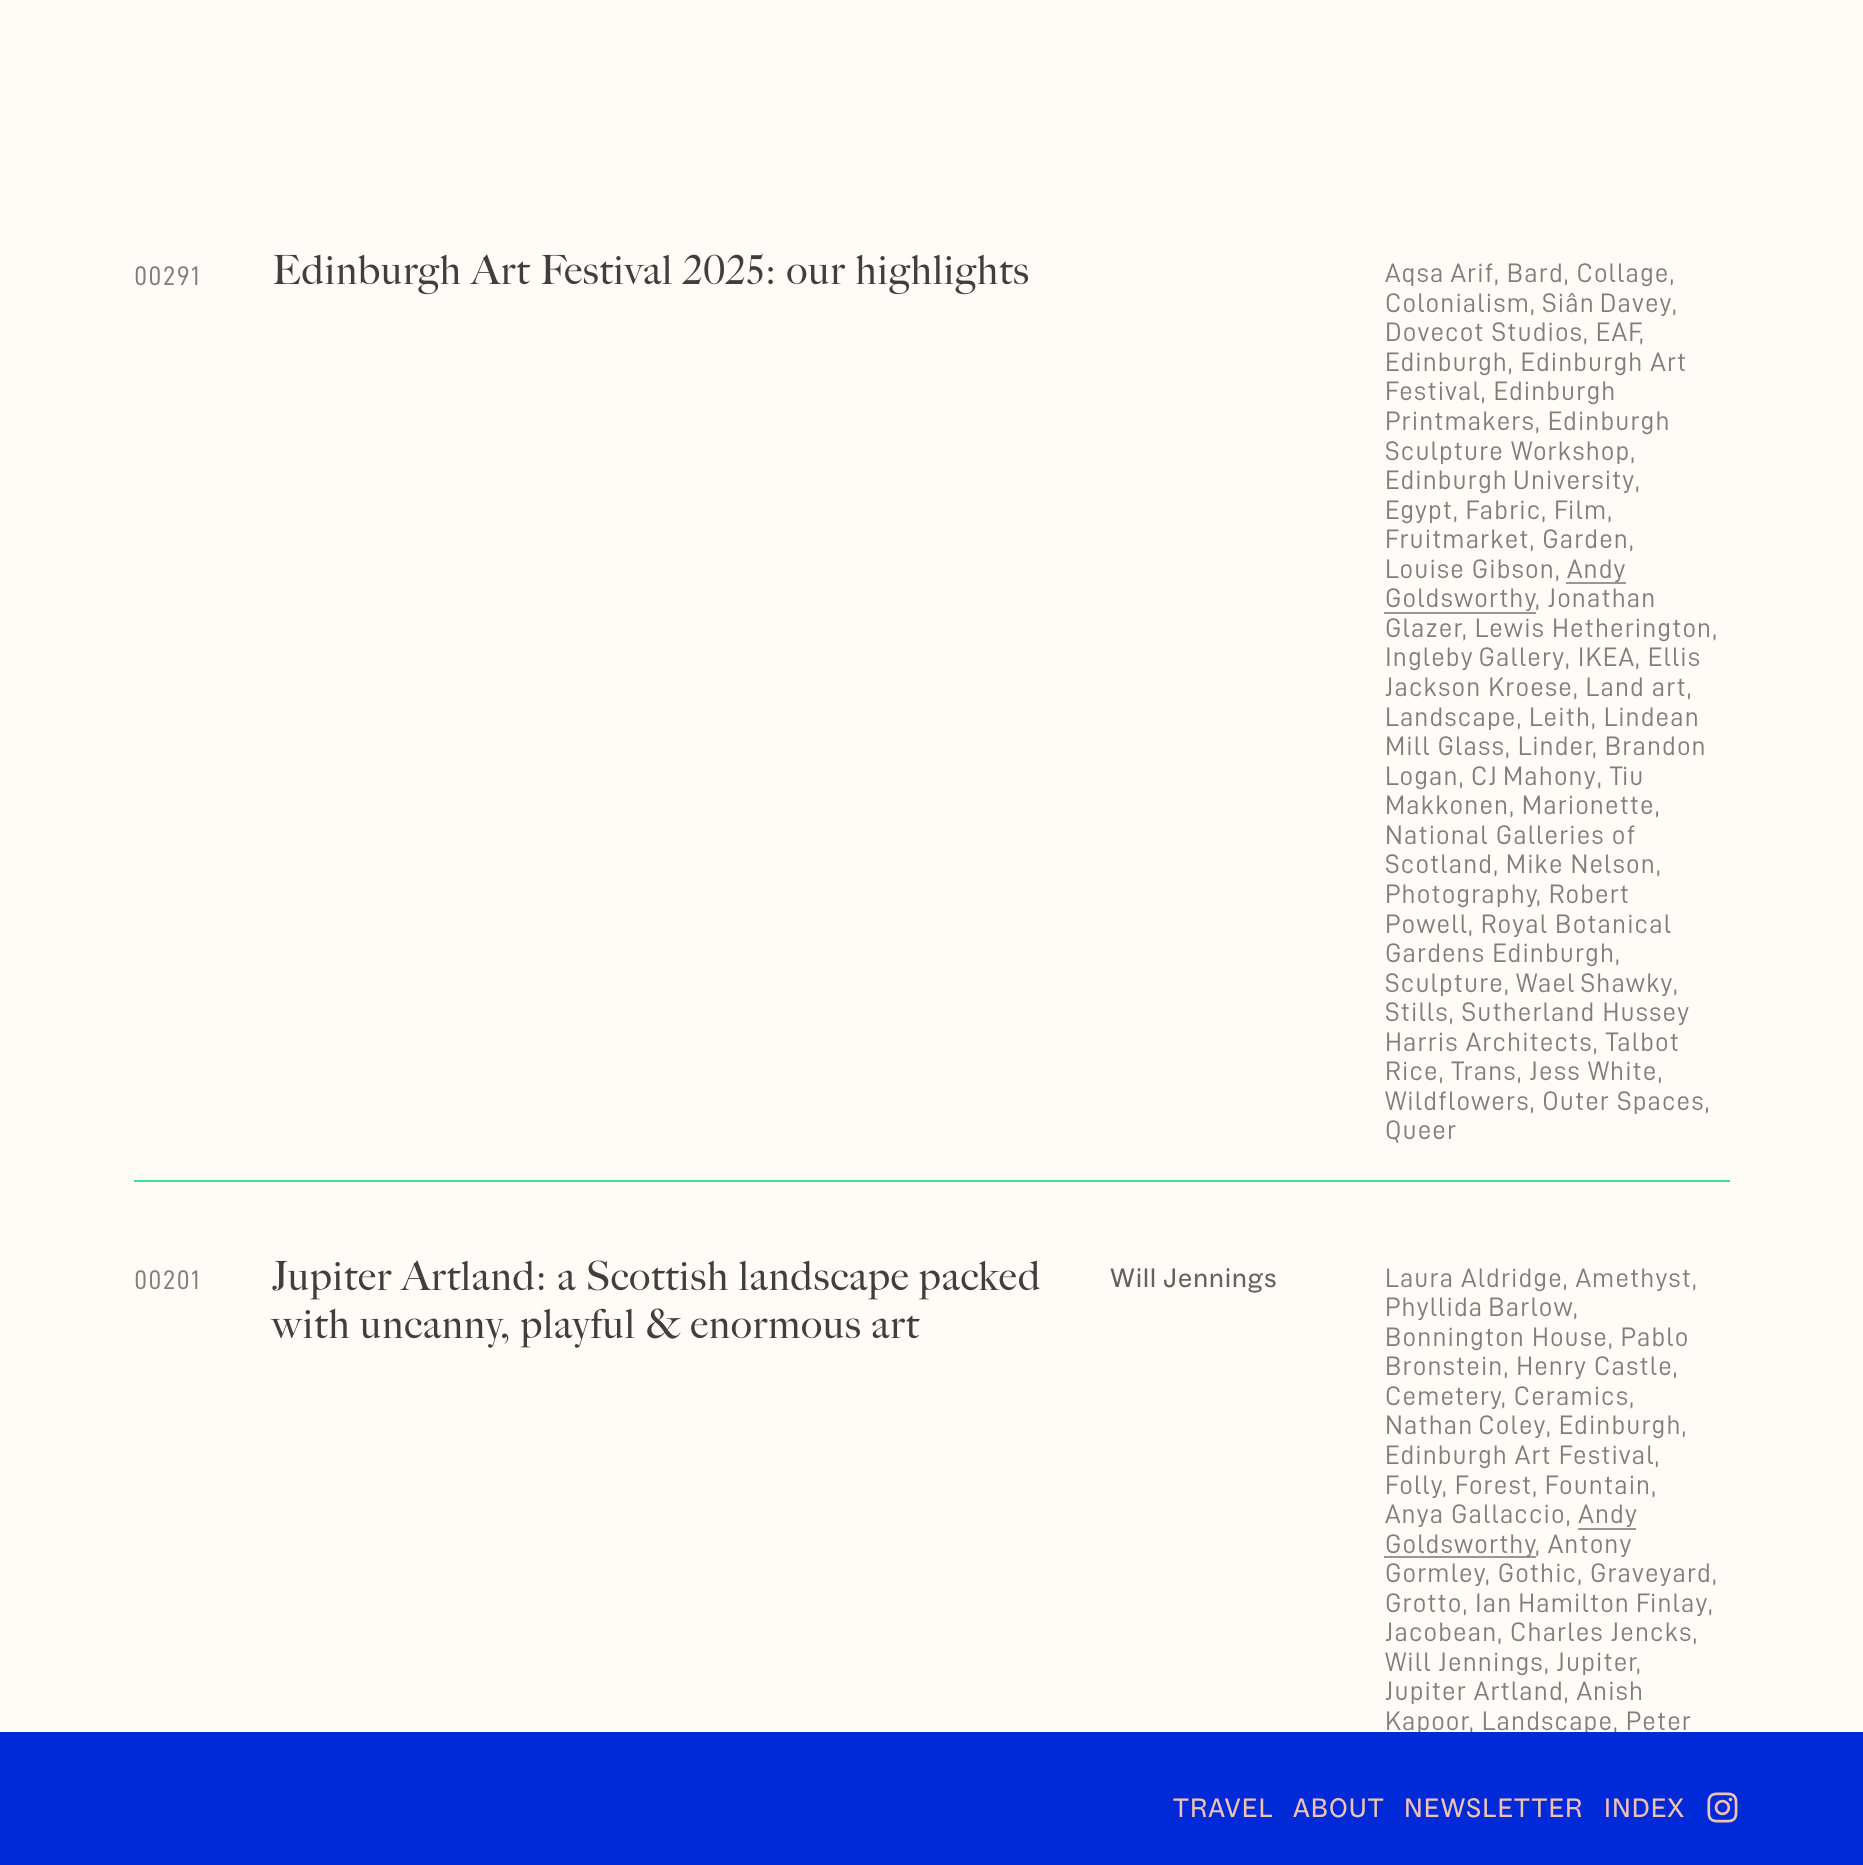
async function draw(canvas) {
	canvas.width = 1863;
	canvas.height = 1865;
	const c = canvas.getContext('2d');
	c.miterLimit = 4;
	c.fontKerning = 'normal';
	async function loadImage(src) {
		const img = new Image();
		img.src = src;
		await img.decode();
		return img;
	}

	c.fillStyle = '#fffbf7';
	c.fillRect(0, 0, 1863, 1865);
	c.letterSpacing = '1.1px';
	c.font = '26.9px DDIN';
	c.fillStyle = '#807e7c';
	c.fillText('00291', 134, 285);
	c.drawImage(await loadImage('img1.png'), 273, 253, 756, 42);
	c.wordSpacing = '-1px';
	c.fillText('Aqsa Arif', 1385, 282);
	c.wordSpacing = '0px';
	c.fillText(', Bard, Collage,', 1494, 282);
	c.fillText('Colonialism,', 1385, 312);
	c.wordSpacing = '-2px';
	c.fillText('Siân Davey', 1542, 312);
	c.wordSpacing = '0px';
	for (const [text, x, y] of [
		[',', 1672, 312],
		['Dovecot Studios, EAF', 1385, 341],
		[',', 1639, 341],
		['Edinburgh, Edinburgh Art', 1385, 371],
		['Festival, Edinburgh', 1385, 400],
		['Printmakers, Edinburgh', 1385, 430],
		['Sculpture Workshop,', 1385, 460],
	]) {
		c.fillText(text, x, y);
	}
	c.wordSpacing = '-2px';
	c.fillText('Edinburgh University', 1385, 489);
	c.wordSpacing = '0px';
	for (const [text, x, y] of [
		[',', 1635, 489],
		['Egypt, Fabric, Film,', 1385, 519],
		['Fruitmarket, Garden,', 1385, 548],
		['Louise Gibson,', 1385, 578],
	]) {
		c.fillText(text, x, y);
	}
	c.fillStyle = '#999794';
	c.fillRect(1566, 582, 60, 2);
	c.fillStyle = '#807e7c';
	c.fillText('Andy', 1567, 578);
	c.fillText('Goldsworthy', 1385, 607);
	c.fillStyle = '#999794';
	c.fillRect(1384, 612, 152, 2);
	c.fillStyle = '#807e7c';
	for (const [text, x, y] of [
		[', Jonathan', 1535, 607],
		['Glazer', 1385, 637],
		[', Lewis Hetherington,', 1462, 637],
	]) {
		c.fillText(text, x, y);
	}
	c.wordSpacing = '-2px';
	c.fillText('Ingleby Gallery', 1385, 666);
	c.wordSpacing = '0px';
	for (const [text, x, y] of [
		[', IKEA', 1565, 666],
		[', Ellis', 1635, 666],
		['Jackson Kroese, Land art,', 1385, 696],
		['Landscape, Leith, Lindean', 1385, 726],
		['Mill Glass, Linder', 1385, 755],
		[', Brandon', 1592, 755],
		['Logan,', 1385, 785],
	]) {
		c.fillText(text, x, y);
	}
	c.wordSpacing = '-2px';
	c.fillText('CJ Mahony', 1471, 785);
	c.wordSpacing = '0px';
	for (const [text, x, y] of [
		[', Tiu', 1597, 785],
		['Makkonen, Marionette,', 1385, 814],
		['National Galleries of', 1385, 844],
		['Scotland, Mike Nelson,', 1385, 873],
		['Photography', 1385, 903],
		[', Robert', 1536, 903],
		['Powell, Royal Botanical', 1385, 933],
		['Gardens Edinburgh,', 1385, 962],
		['Sculpture,', 1385, 992],
	]) {
		c.fillText(text, x, y);
	}
	c.wordSpacing = '-2px';
	c.fillText('Wael Shawky', 1516, 992);
	c.wordSpacing = '0px';
	for (const [text, x, y] of [
		[',', 1673, 992],
		['Stills, Sutherland Hussey', 1385, 1021],
		['Harris Architects, Talbot', 1385, 1051],
		['Rice, Trans, Jess White,', 1385, 1080],
		['Wildflowers, Outer Spaces,', 1385, 1110],
		['Queer', 1385, 1139],
	]) {
		c.fillText(text, x, y);
	}
	c.fillStyle = '#3be296';
	c.fillRect(134, 1180, 1596, 2);
	c.fillStyle = '#807e7c';
	c.fillText('00201', 134, 1289);
	c.drawImage(await loadImage('img2.png'), 272, 1260, 768, 40);
	c.drawImage(await loadImage('img3.png'), 270, 1308, 650, 40);
	c.font = '26.9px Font';
	c.fillStyle = '#636260';
	c.fillText('Will Jennings', 1110, 1287);
	c.font = '26.9px DDIN';
	c.fillStyle = '#807e7c';
	c.fillText('Laura Aldridge, Amethyst,', 1385, 1287);
	c.wordSpacing = '-2px';
	c.fillText('Phyllida Barlow', 1385, 1316);
	c.wordSpacing = '0px';
	for (const [text, x, y] of [
		[',', 1573, 1316],
		['Bonnington House, Pablo', 1385, 1346],
		['Bronstein, Henry Castle,', 1385, 1375],
		['Cemetery', 1385, 1405],
		[', Ceramics,', 1501, 1405],
	]) {
		c.fillText(text, x, y);
	}
	c.wordSpacing = '-2px';
	c.fillText('Nathan Coley', 1385, 1434);
	c.wordSpacing = '0px';
	for (const [text, x, y] of [
		[', Edinburgh,', 1546, 1434],
		['Edinburgh Art Festival,', 1385, 1464],
		['Folly', 1385, 1494],
		[', Forest, Fountain,', 1442, 1494],
		['Anya Gallaccio, Andy', 1385, 1523],
	]) {
		c.fillText(text, x, y);
	}
	c.fillStyle = '#999794';
	c.fillRect(1578, 1528, 58, 2);
	c.fillRect(1384, 1556, 152, 2);
	c.fillStyle = '#807e7c';
	for (const [text, x, y] of [
		['Goldsworthy', 1385, 1553],
		[', Antony', 1535, 1553],
		['Gormley', 1385, 1582],
		[', Gothic, Graveyard,', 1485, 1582],
		['Grotto,', 1385, 1612],
	]) {
		c.fillText(text, x, y);
	}
	c.wordSpacing = '-1px';
	c.fillText('Ian Hamilton Finlay', 1475, 1612);
	c.wordSpacing = '0px';
	for (const [text, x, y] of [
		[',', 1708, 1612],
		['Jacobean, Charles Jencks,', 1385, 1641],
		['Will Jennings, Jupiter', 1385, 1671],
		[',', 1636, 1671],
		['Jupiter Artland, Anish', 1385, 1700],
		['Kapoor', 1385, 1730],
		[', Landscape, Peter', 1469, 1730],
	]) {
		c.fillText(text, x, y);
	}
	c.fillStyle = '#002ad7';
	c.fillRect(0, 1732, 1863, 133);
	c.font = '26.9px Font';
	c.fillStyle = '#efc2b4';
	for (const [text, x, y] of [
		['TRAVEL', 1173, 1817],
		['ABOUT', 1293, 1817],
		['NEWSLETTER', 1404, 1817],
		['INDEX', 1604, 1817],
	]) {
		c.fillText(text, x, y);
	}
	c.drawImage(await loadImage('img4.png'), 1707, 1792, 31, 31);
}

draw(document.querySelector('canvas'));
